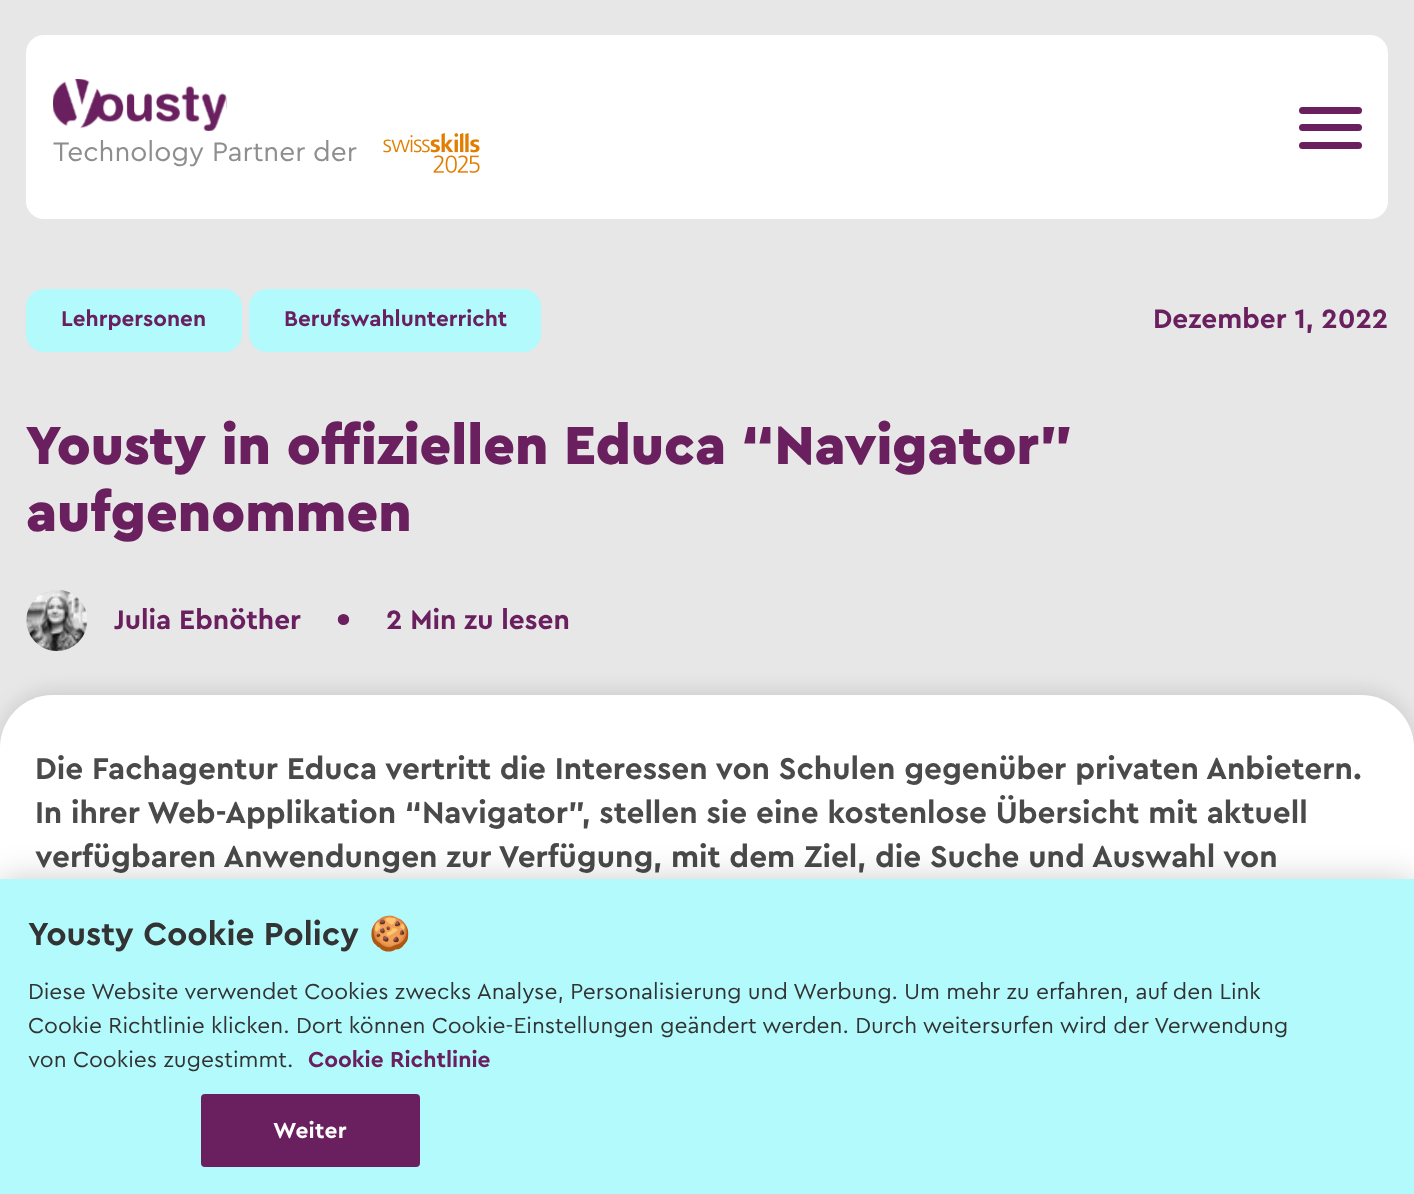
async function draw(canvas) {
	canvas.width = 1414;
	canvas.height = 1194;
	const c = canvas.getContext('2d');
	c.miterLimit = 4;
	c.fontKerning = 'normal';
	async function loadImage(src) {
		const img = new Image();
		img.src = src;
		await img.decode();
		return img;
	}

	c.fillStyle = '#e7e7e7';
	c.fillRect(0, 0, 1414, 1194);
	c.fillStyle = '#fff';
	c.beginPath();
	c.roundRect(26, 35, 1362, 184, 18);
	c.fill();
	c.fillStyle = '#6a205f';
	c.beginPath();
	c.roundRect(1299, 107, 63, 7, 3.5);
	c.fill();
	c.beginPath();
	c.roundRect(1299, 124, 63, 7, 3.5);
	c.fill();
	c.beginPath();
	c.roundRect(1299, 142, 63, 7, 3.5);
	c.fill();
	c.drawImage(await loadImage('img1.png'), 53, 79, 174, 52);
	c.font = '28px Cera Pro';
	c.fillStyle = '#8e8e8e';
	c.fillText('Technology Partner der', 53, 161);
	c.drawImage(await loadImage('img2.png'), 383, 133, 97, 40);
	c.fillStyle = '#b3fafd';
	c.beginPath();
	c.roundRect(27, 290, 214, 61, 17);
	c.fill();
	c.strokeStyle = '#b3fafd';
	c.lineWidth = 2;
	c.stroke();
	c.font = 'bold 22.5px Cera Pro';
	c.fillStyle = '#6a205f';
	c.fillText('Lehrpersonen', 61, 326);
	c.fillStyle = '#b3fafd';
	c.beginPath();
	c.roundRect(250, 290, 290, 61, 17);
	c.fill();
	c.stroke();
	c.fillStyle = '#6a205f';
	c.fillText('Berufswahlunterricht', 284, 326);
	c.font = 'bold 28px Cera Pro';
	c.fillText('Dezember 1, 2022', 1153, 328);
	c.font = '900 56px Cera Pro';
	c.fillText('Yousty in offiziellen Educa “Navigator”', 26, 464);
	c.fillText('aufgenommen', 26, 531);
	c.drawImage(await loadImage('img3.png'), 26, 590, 62, 61);
	c.font = 'bold 28px Cera Pro';
	c.fillText('Julia Ebnöther', 114, 629);
	c.font = 'bold 35px Cera Pro';
	c.fillText('•', 336, 629);
	c.font = 'bold 28px Cera Pro';
	c.fillText('2 Min zu lesen', 386, 629);
	c.fillStyle = '#0000001a';
	c.filter = 'blur(9px)';
	c.beginPath();
	c.roundRect(0, 690, 1414, 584, 53);
	c.fill();
	c.filter = 'none';
	c.fillStyle = '#fff';
	c.beginPath();
	c.moveTo(53, 695);
	c.lineTo(1361, 695);
	c.bezierCurveTo(1390.5, 695, 1414, 718.5, 1414, 748);
	c.lineTo(1414, 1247);
	c.lineTo(0, 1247);
	c.lineTo(0, 748);
	c.bezierCurveTo(0, 718.5, 23.5, 695, 53, 695);
	c.closePath();
	c.fill();
	c.font = 'bold 31.5px Cera Pro';
	c.fillStyle = '#4a4a4a';
	for (const [text, x, y] of [
		['Die Fachagentur Educa vertritt die Interessen von Schulen gegenüber privaten Anbietern.', 35, 779],
		['In ihrer Web-Applikation “Navigator”, stellen sie eine kostenlose Übersicht mit aktuell', 35, 823],
		['verfügbaren Anwendungen zur Verfügung, mit dem Ziel, die Suche und Auswahl von', 35, 867],
	]) {
		c.fillText(text, x, y);
	}
	c.fillStyle = '#00000033';
	c.filter = 'blur(16px)';
	c.beginPath();
	c.rect(0, 879, 1414, 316);
	c.fill();
	c.filter = 'none';
	c.fillStyle = '#b3fafd';
	c.fillRect(0, 879, 1414, 315);
	c.font = 'bold 33.5px Cera Pro';
	c.fillStyle = '#333';
	c.fillText('Yousty Cookie Policy', 28, 945);
	c.font = 'bold 33.5px Noto Color Emoji';
	c.fillText('🍪', 369, 945);
	c.font = '22.75px Cera Pro';
	for (const [text, x, y] of [
		['Diese Website verwendet Cookies zwecks Analyse, Personalisierung und Werbung. Um mehr zu erfahren, auf den Link', 28, 999],
		['Cookie Richtlinie klicken. Dort können Cookie-Einstellungen geändert werden. Durch weitersurfen wird der Verwendung', 28, 1033],
		['von Cookies zugestimmt.', 28, 1067],
	]) {
		c.fillText(text, x, y);
	}
	c.font = 'bold 22.75px Cera Pro';
	c.fillStyle = '#6a205f';
	c.fillText('Cookie Richtlinie', 308, 1067);
	c.beginPath();
	c.roundRect(202, 1095, 217, 71, 3);
	c.fill();
	c.strokeStyle = '#6a205f';
	c.stroke();
	c.letterSpacing = '0.25px';
	c.fillStyle = '#fff';
	c.fillText('Weiter', 273, 1138);
}

draw(document.querySelector('canvas'));
